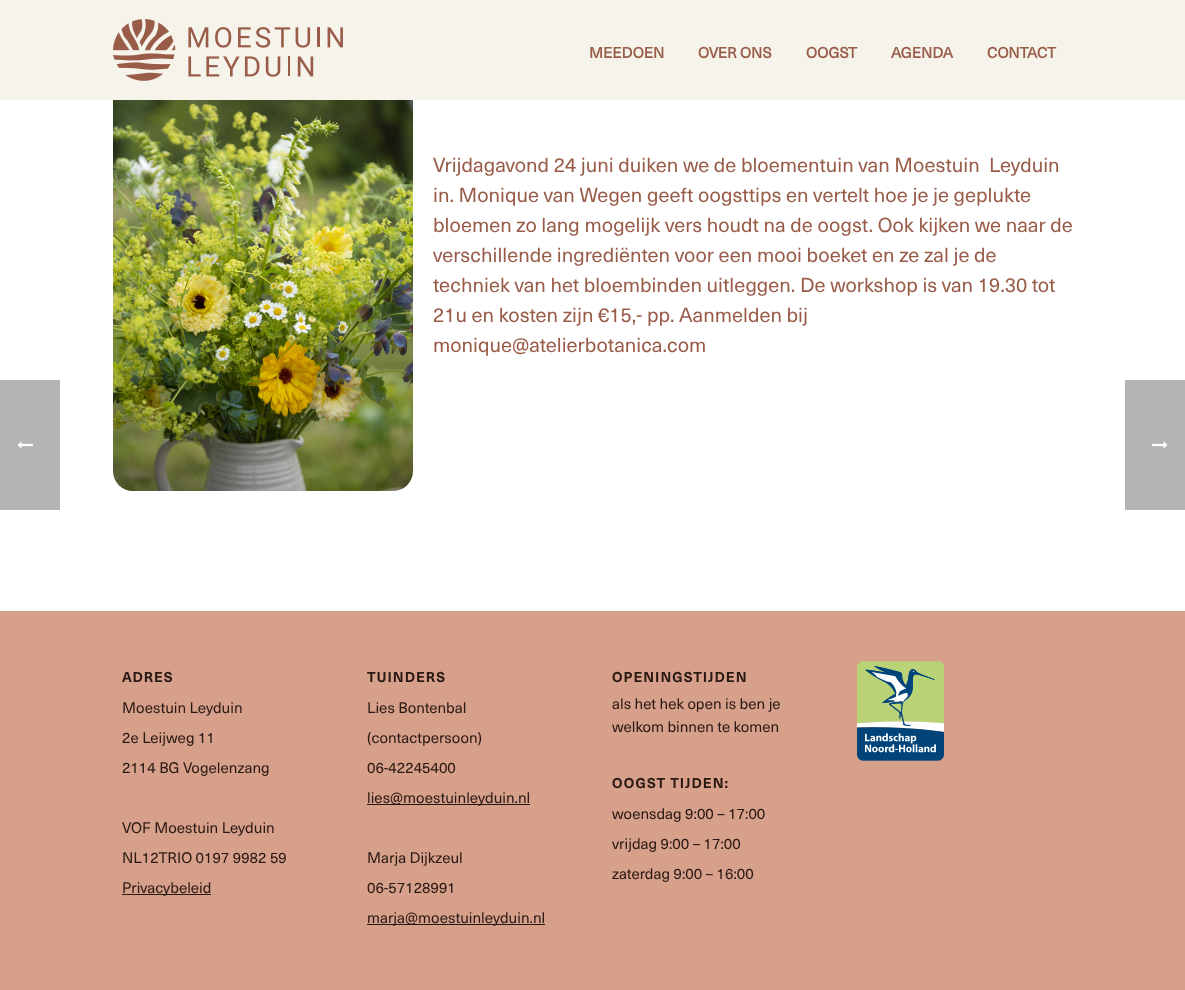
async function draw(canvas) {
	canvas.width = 1185;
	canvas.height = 990;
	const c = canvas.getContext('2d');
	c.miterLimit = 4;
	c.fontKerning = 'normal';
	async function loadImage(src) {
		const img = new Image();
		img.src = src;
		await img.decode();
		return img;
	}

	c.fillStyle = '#fff';
	c.fillRect(0, 0, 1185, 990);
	c.fillStyle = '#b3b3b3';
	c.fillRect(0, 380, 60, 130);
	c.drawImage(await loadImage('img1.png'), 17, 441, 16, 8);
	c.fillStyle = '#f5f3ea';
	c.fillRect(0, 0, 1185, 100);
	c.drawImage(await loadImage('img2.png'), 113, 19, 230, 62);
	c.font = 'bold 15px "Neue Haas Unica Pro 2"';
	c.fillStyle = '#995c49';
	for (const [text, x, y] of [
		['MEEDOEN', 589, 58],
		['OVER ONS', 698, 58],
		['OOGST', 806, 58],
		['AGENDA', 891, 58],
		['CONTACT', 987, 58],
	]) {
		c.fillText(text, x, y);
	}
	c.drawImage(await loadImage('img3.png'), 113, 100, 300, 391);
	c.font = '20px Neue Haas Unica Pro';
	for (const [text, x, y] of [
		['Vrijdagavond 24 juni duiken we de bloementuin van Moestuin  Leyduin', 433, 172],
		['in. Monique van Wegen geeft oogsttips en vertelt hoe je je geplukte', 433, 202],
		['bloemen zo lang mogelijk vers houdt na de oogst. Ook kijken we naar de', 433, 232],
		['verschillende ingrediënten voor een mooi boeket en ze zal je de', 433, 262],
		['techniek van het bloembinden uitleggen. De workshop is van 19.30 tot', 433, 292],
		['21u en kosten zijn €15,- pp. Aanmelden bij', 433, 322],
		['monique@atelierbotanica.com', 433, 352],
	]) {
		c.fillText(text, x, y);
	}
	c.fillStyle = '#d6a08b';
	c.fillRect(0, 611, 1185, 379);
	c.letterSpacing = '1px';
	c.font = 'bold 14px Neue Haas Unica Pro';
	c.fillStyle = '#2a1913';
	c.fillText('ADRES', 122, 682);
	c.letterSpacing = '0px';
	c.font = '15px Neue Haas Unica Pro';
	for (const [text, x, y] of [
		['Moestuin Leyduin', 122, 713],
		['2e Leijweg 11', 122, 743],
		['2114 BG Vogelenzang', 122, 773],
		['VOF Moestuin Leyduin', 122, 833],
		['NL12TRIO 0197 9982 59', 122, 863],
	]) {
		c.fillText(text, x, y);
	}
	c.fillRect(122, 894, 89, 1);
	c.fillText('Privacybeleid', 122, 893);
	c.letterSpacing = '1px';
	c.font = 'bold 14px Neue Haas Unica Pro';
	c.fillText('TUINDERS', 367, 682);
	c.letterSpacing = '0px';
	c.font = '15px Neue Haas Unica Pro';
	for (const [text, x, y] of [
		['Lies Bontenbal', 367, 713],
		['(contactpersoon)', 367, 743],
		['06-42245400', 367, 773],
	]) {
		c.fillText(text, x, y);
	}
	c.fillRect(367, 804, 163, 1);
	for (const [text, x, y] of [
		['lies@moestuinleyduin.nl', 367, 803],
		['Marja Dijkzeul', 367, 863],
		['06-57128991', 367, 893],
	]) {
		c.fillText(text, x, y);
	}
	c.fillRect(367, 924, 178, 1);
	c.fillText('marja@moestuinleyduin.nl', 367, 923);
	c.letterSpacing = '1px';
	c.font = 'bold 14px Neue Haas Unica Pro';
	c.fillText('OPENINGSTIJDEN', 612, 682);
	c.letterSpacing = '0px';
	c.font = '15px Neue Haas Unica Pro';
	c.fillText('als het hek open is ben je', 612, 709);
	c.fillText('welkom binnen te komen', 612, 732);
	c.letterSpacing = '1px';
	c.font = 'bold 14px Neue Haas Unica Pro';
	c.fillText('OOGST TIJDEN:', 612, 788);
	c.letterSpacing = '0px';
	c.font = '15px Neue Haas Unica Pro';
	for (const [text, x, y] of [
		['woensdag 9:00 – 17:00', 612, 819],
		['vrijdag 9:00 – 17:00', 612, 849],
		['zaterdag 9:00 – 16:00', 612, 879],
	]) {
		c.fillText(text, x, y);
	}
	c.drawImage(await loadImage('img4.png'), 857, 661, 87, 100);
	c.fillStyle = '#b3b3b3';
	c.fillRect(1125, 380, 60, 130);
	c.drawImage(await loadImage('img5.png'), 1152, 441, 16, 8);
}

draw(document.querySelector('canvas'));
